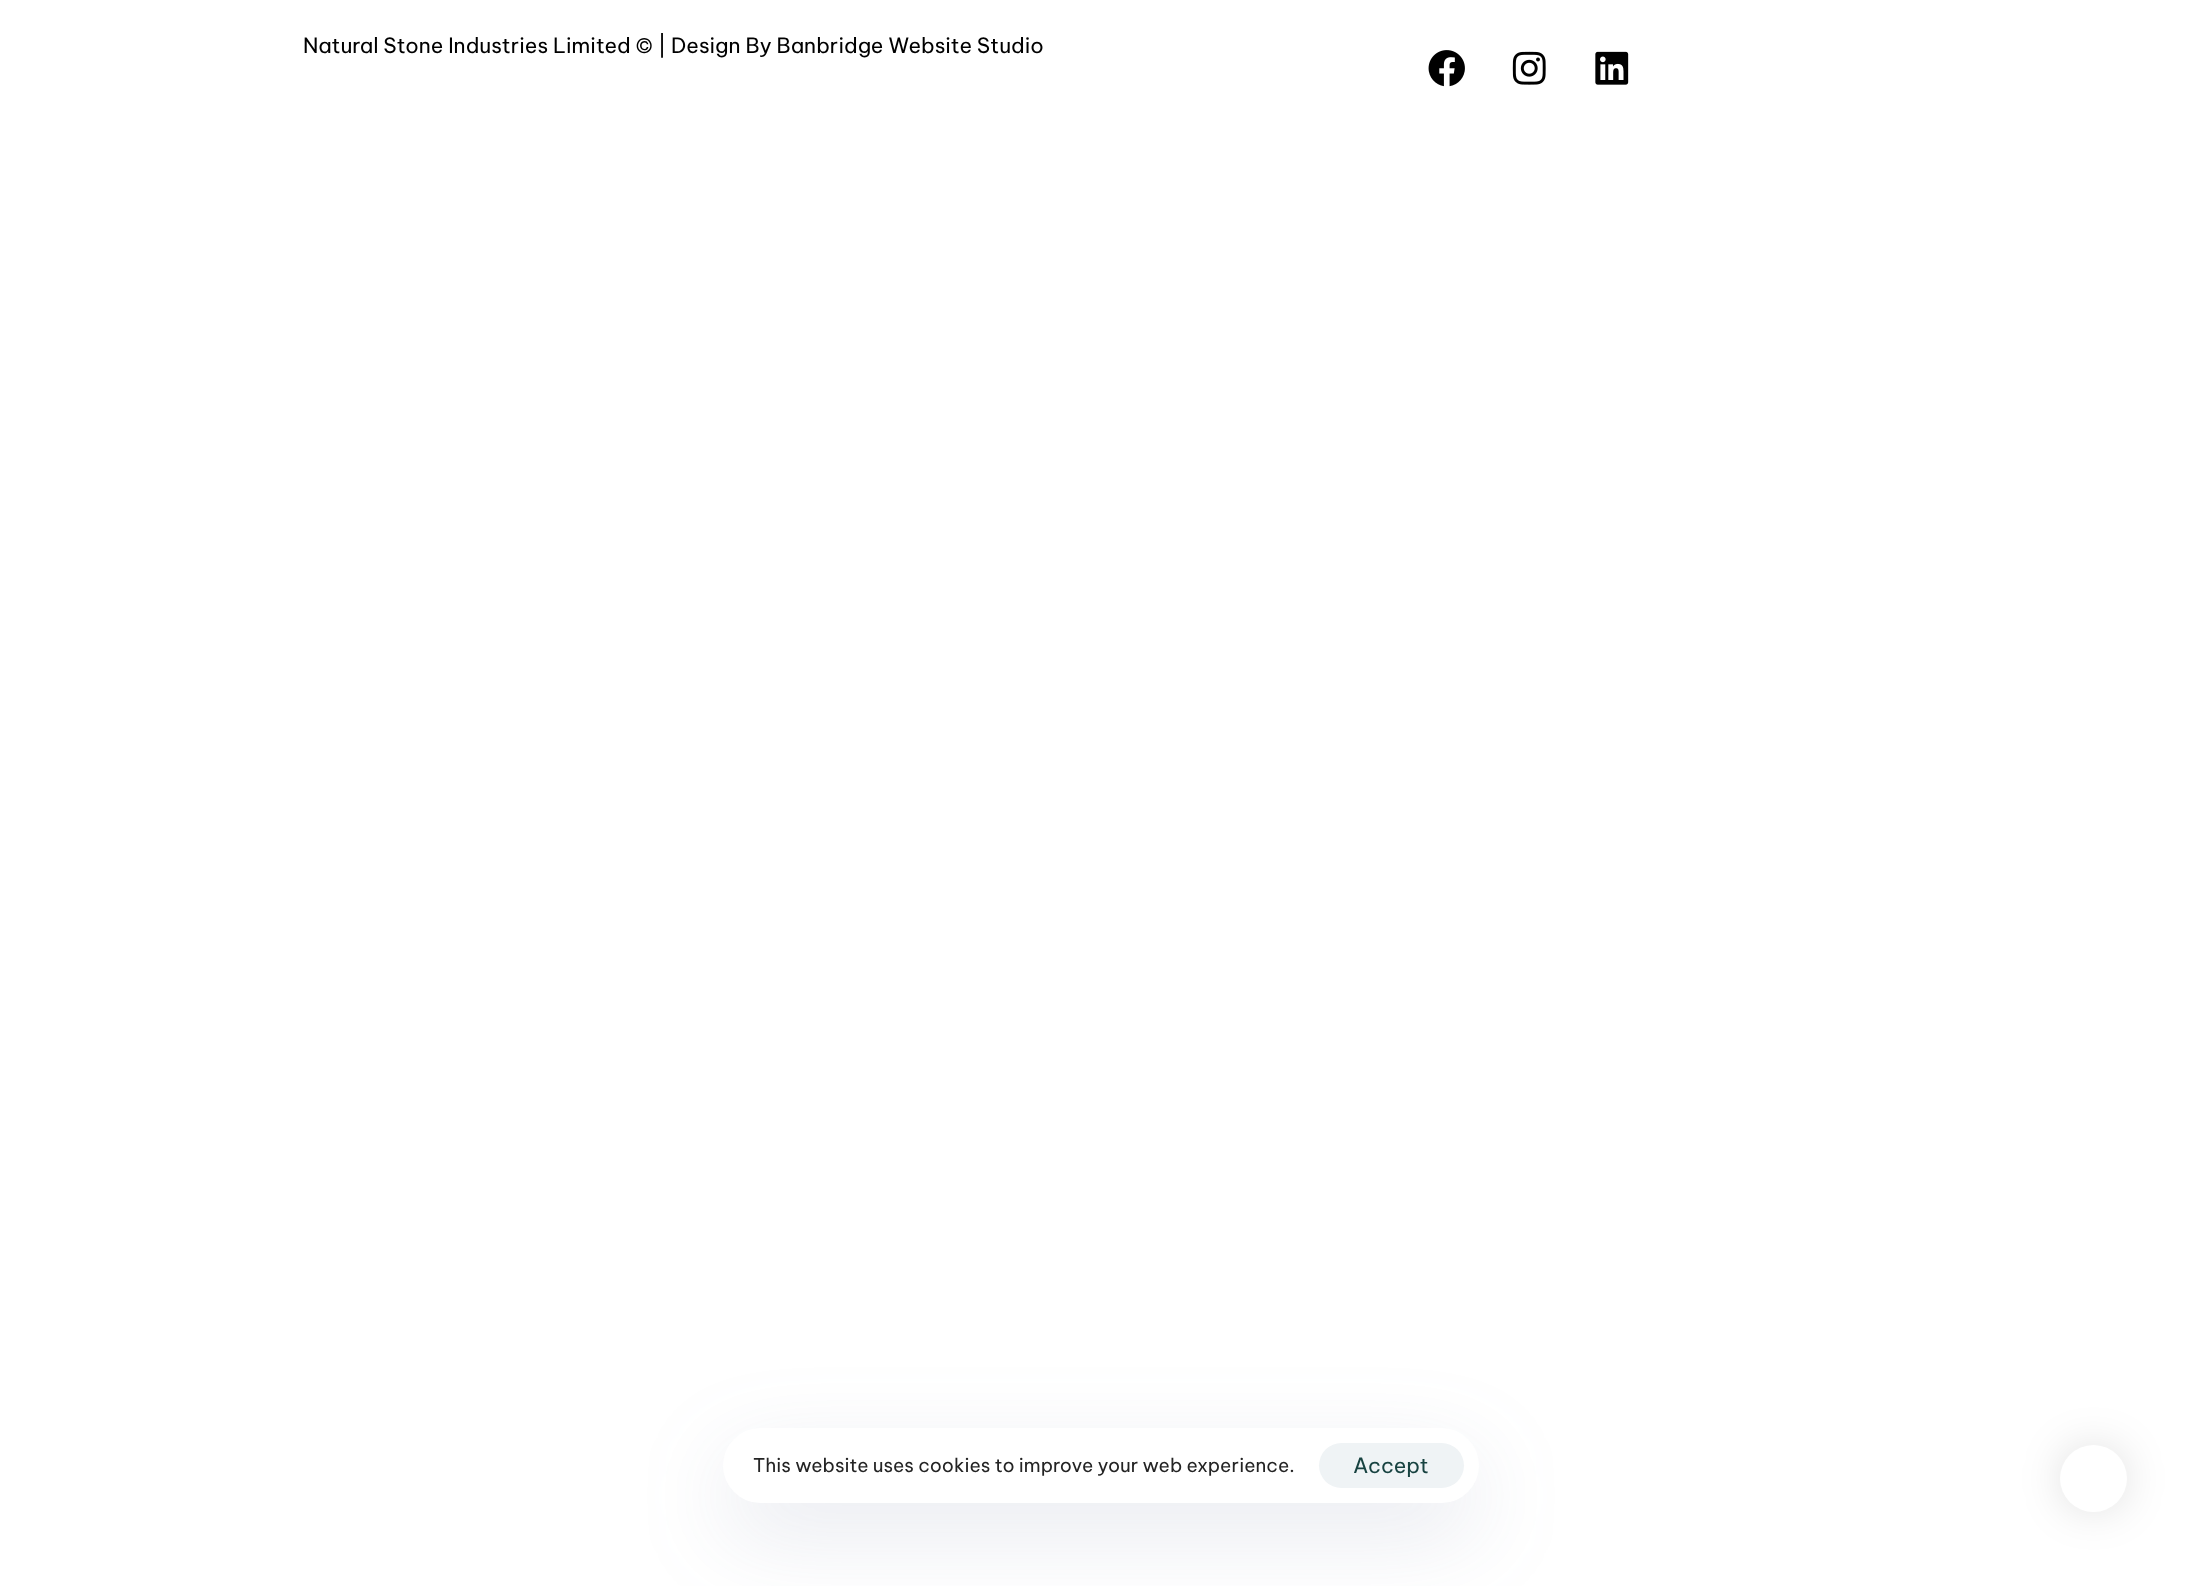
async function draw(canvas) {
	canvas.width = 2201;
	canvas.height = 1586;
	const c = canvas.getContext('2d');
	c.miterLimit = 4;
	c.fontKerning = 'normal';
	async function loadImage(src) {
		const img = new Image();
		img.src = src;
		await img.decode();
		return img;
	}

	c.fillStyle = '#fff';
	c.fillRect(0, 0, 2201, 1586);
	c.font = '21px Be Vietnam Pro';
	c.fillStyle = '#000';
	c.fillText('Natural Stone Industries Limited © | Design By Banbridge Website Studio', 303, 53);
	c.drawImage(await loadImage('img1.png'), 1428, 50, 37, 37);
	c.drawImage(await loadImage('img2.png'), 1512, 51, 34, 34);
	c.drawImage(await loadImage('img3.png'), 1595, 51, 34, 34);
	c.fillStyle = '#00000026';
	c.filter = 'blur(22.5px)';
	c.beginPath();
	c.roundRect(2063, 1448, 61, 61, 30.5);
	c.fill();
	c.filter = 'none';
	c.fillStyle = '#fff';
	c.beginPath();
	c.arc(2093.5, 1478.5, 33.5, 0, 2 * Math.PI);
	c.fill();
	c.fillStyle = '#5c6b9526';
	c.filter = 'blur(45px)';
	c.beginPath();
	c.roundRect(723, 1458, 756, 75, 37.5);
	c.fill();
	c.filter = 'none';
	c.fillStyle = '#fff';
	c.beginPath();
	c.roundRect(723, 1428, 756, 75, 37.5);
	c.fill();
	c.font = '18.9px Be Vietnam Pro';
	c.fillStyle = '#242424';
	c.fillText('This website uses cookies to improve your web experience.', 753, 1472);
	c.fillStyle = '#eff3f5';
	c.beginPath();
	c.roundRect(1319, 1443, 145, 45, 22.5);
	c.fill();
	c.font = '21px Be Vietnam Pro';
	c.fillStyle = '#184341';
	c.fillText('Accept', 1353, 1473);
}

draw(document.querySelector('canvas'));
